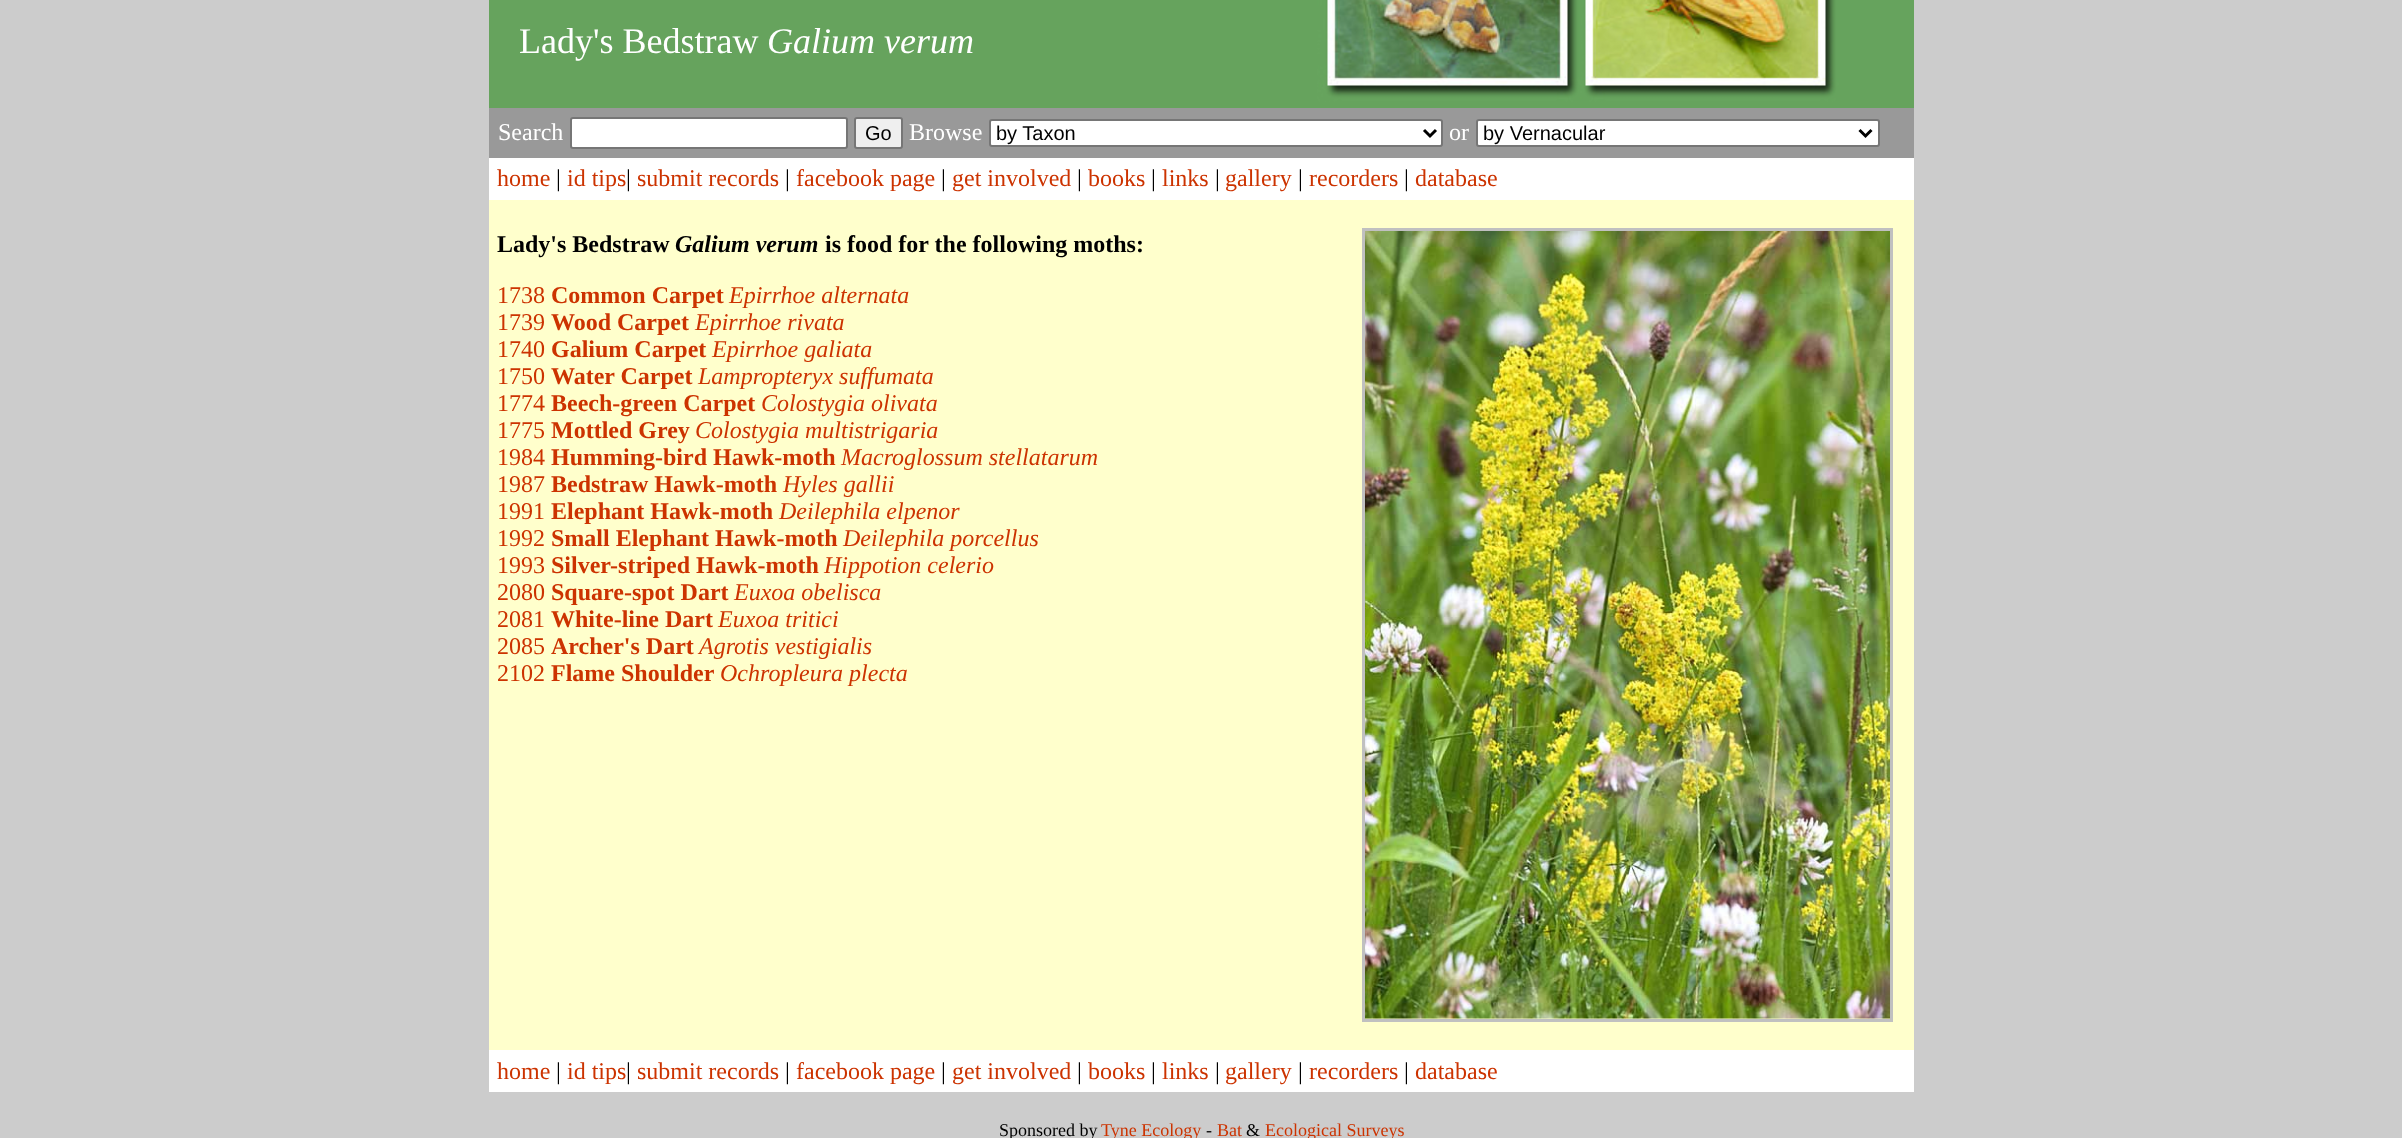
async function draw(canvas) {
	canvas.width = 2402;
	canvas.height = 1138;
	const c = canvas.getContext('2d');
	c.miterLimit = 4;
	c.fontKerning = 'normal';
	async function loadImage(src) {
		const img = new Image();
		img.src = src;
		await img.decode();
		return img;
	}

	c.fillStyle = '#ccc';
	c.fillRect(0, 0, 2402, 1138);
	c.drawImage(await loadImage('img1.png'), 489, 0, 1425, 108);
	c.font = '36px Liberation Serif';
	c.fillStyle = '#fff';
	c.fillText('Lady\'s Bedstraw', 519, 53);
	c.font = 'italic 36px Liberation Serif';
	c.fillText('Galium verum', 767, 53);
	c.fillStyle = '#999';
	c.fillRect(489, 108, 1425, 50);
	c.font = '24px Liberation Serif';
	c.fillStyle = '#fff';
	c.fillText('Search', 498, 140);
	c.beginPath();
	c.roundRect(571, 118, 276, 30, 2);
	c.fill();
	c.strokeStyle = '#767676';
	c.lineWidth = 2;
	c.stroke();
	c.fillStyle = '#efefef';
	c.beginPath();
	c.roundRect(855, 118, 47, 30, 2);
	c.fill();
	c.stroke();
	c.font = '20px Liberation Sans';
	c.fillStyle = '#000';
	c.fillText('Go', 865, 140);
	c.font = '24px Liberation Serif';
	c.fillStyle = '#fff';
	c.fillText('Browse', 909, 140);
	c.beginPath();
	c.roundRect(990, 120, 452, 26, 2);
	c.fill();
	c.stroke();
	c.beginPath();
	c.moveTo(1424, 130);
	c.lineTo(1430, 136);
	c.lineTo(1436, 130);
	c.strokeStyle = '#000';
	c.lineWidth = 3;
	c.stroke();
	c.font = '20px Liberation Sans';
	c.fillStyle = '#000';
	c.fillText('by Taxon', 996, 140);
	c.font = '24px Liberation Serif';
	c.fillStyle = '#fff';
	c.fillText('or', 1449, 140);
	c.beginPath();
	c.roundRect(1477, 120, 402, 26, 2);
	c.fill();
	c.strokeStyle = '#767676';
	c.lineWidth = 2;
	c.stroke();
	c.beginPath();
	c.moveTo(1859.5, 130);
	c.lineTo(1865.5, 136);
	c.lineTo(1871.5, 130);
	c.strokeStyle = '#000';
	c.lineWidth = 3;
	c.stroke();
	c.font = '20px Liberation Sans';
	c.fillStyle = '#000';
	c.fillText('by Vernacular', 1483, 140);
	c.fillStyle = '#fff';
	c.fillRect(489, 158, 1425, 42);
	c.font = '24px Liberation Serif';
	c.fillStyle = '#c30';
	c.fillText('home', 497, 186);
	c.fillStyle = '#000';
	c.fillText('|', 556, 186);
	c.fillStyle = '#c30';
	c.fillText('id tips', 567, 186);
	c.fillStyle = '#000';
	c.fillText('|', 626, 186);
	c.fillStyle = '#c30';
	c.fillText('submit records', 637, 186);
	c.fillStyle = '#000';
	c.fillText('|', 785, 186);
	c.fillStyle = '#c30';
	c.fillText('facebook page', 796, 186);
	c.fillStyle = '#000';
	c.fillText('|', 941, 186);
	c.fillStyle = '#c30';
	c.fillText('get involved', 952, 186);
	c.fillStyle = '#000';
	c.fillText('|', 1077, 186);
	c.fillStyle = '#c30';
	c.fillText('books', 1088, 186);
	c.fillStyle = '#000';
	c.fillText('|', 1151, 186);
	c.fillStyle = '#c30';
	c.fillText('links', 1162, 186);
	c.fillStyle = '#000';
	c.fillText('|', 1215, 186);
	c.fillStyle = '#c30';
	c.fillText('gallery', 1225, 186);
	c.fillStyle = '#000';
	c.fillText('|', 1298, 186);
	c.fillStyle = '#c30';
	c.fillText('recorders', 1309, 186);
	c.fillStyle = '#000';
	c.fillText('|', 1404, 186);
	c.fillStyle = '#c30';
	c.fillText('database', 1415, 186);
	c.fillStyle = '#ffc';
	c.fillRect(489, 200, 1425, 850);
	c.font = 'bold 24px Liberation Serif';
	c.fillStyle = '#000';
	c.fillText('Lady\'s Bedstraw', 497, 252);
	c.font = 'italic bold 24px Liberation Serif';
	c.fillText('Galium verum', 675, 252);
	c.font = 'bold 24px Liberation Serif';
	c.fillText('is food for the following moths:', 825, 252);
	c.font = '24px Liberation Serif';
	c.fillStyle = '#c30';
	c.fillText('1738', 497, 303);
	c.font = 'bold 24px Liberation Serif';
	c.fillText('Common Carpet', 551, 303);
	c.font = 'italic 24px Liberation Serif';
	c.fillText('Epirrhoe alternata', 729, 303);
	c.font = '24px Liberation Serif';
	c.fillText('1739', 497, 330);
	c.font = 'bold 24px Liberation Serif';
	c.fillText('Wood Carpet', 551, 330);
	c.font = 'italic 24px Liberation Serif';
	c.fillText('Epirrhoe rivata', 695, 330);
	c.font = '24px Liberation Serif';
	c.fillText('1740', 497, 357);
	c.font = 'bold 24px Liberation Serif';
	c.fillText('Galium Carpet', 551, 357);
	c.font = 'italic 24px Liberation Serif';
	c.fillText('Epirrhoe galiata', 712, 357);
	c.font = '24px Liberation Serif';
	c.fillText('1750', 497, 384);
	c.font = 'bold 24px Liberation Serif';
	c.fillText('Water Carpet', 551, 384);
	c.font = 'italic 24px Liberation Serif';
	c.fillText('Lampropteryx suffumata', 698, 384);
	c.font = '24px Liberation Serif';
	c.fillText('1774', 497, 411);
	c.font = 'bold 24px Liberation Serif';
	c.fillText('Beech-green Carpet', 551, 411);
	c.font = 'italic 24px Liberation Serif';
	c.fillText('Colostygia olivata', 761, 411);
	c.font = '24px Liberation Serif';
	c.fillText('1775', 497, 438);
	c.font = 'bold 24px Liberation Serif';
	c.fillText('Mottled Grey', 551, 438);
	c.font = 'italic 24px Liberation Serif';
	c.fillText('Colostygia multistrigaria', 695, 438);
	c.font = '24px Liberation Serif';
	c.fillText('1984', 497, 465);
	c.font = 'bold 24px Liberation Serif';
	c.fillText('Humming-bird Hawk-moth', 551, 465);
	c.font = 'italic 24px Liberation Serif';
	c.fillText('Macroglossum stellatarum', 841, 465);
	c.font = '24px Liberation Serif';
	c.fillText('1987', 497, 492);
	c.font = 'bold 24px Liberation Serif';
	c.fillText('Bedstraw Hawk-moth', 551, 492);
	c.font = 'italic 24px Liberation Serif';
	c.fillText('Hyles gallii', 783, 492);
	c.font = '24px Liberation Serif';
	c.fillText('1991', 497, 519);
	c.font = 'bold 24px Liberation Serif';
	c.fillText('Elephant Hawk-moth', 551, 519);
	c.font = 'italic 24px Liberation Serif';
	c.fillText('Deilephila elpenor', 779, 519);
	c.font = '24px Liberation Serif';
	c.fillText('1992', 497, 546);
	c.font = 'bold 24px Liberation Serif';
	c.fillText('Small Elephant Hawk-moth', 551, 546);
	c.font = 'italic 24px Liberation Serif';
	c.fillText('Deilephila porcellus', 843, 546);
	c.font = '24px Liberation Serif';
	c.fillText('1993', 497, 573);
	c.font = 'bold 24px Liberation Serif';
	c.fillText('Silver-striped Hawk-moth', 551, 573);
	c.font = 'italic 24px Liberation Serif';
	c.fillText('Hippotion celerio', 824, 573);
	c.font = '24px Liberation Serif';
	c.fillText('2080', 497, 600);
	c.font = 'bold 24px Liberation Serif';
	c.fillText('Square-spot Dart', 551, 600);
	c.font = 'italic 24px Liberation Serif';
	c.fillText('Euxoa obelisca', 734, 600);
	c.font = '24px Liberation Serif';
	c.fillText('2081', 497, 627);
	c.font = 'bold 24px Liberation Serif';
	c.fillText('White-line Dart', 551, 627);
	c.font = 'italic 24px Liberation Serif';
	c.fillText('Euxoa tritici', 718, 627);
	c.font = '24px Liberation Serif';
	c.fillText('2085', 497, 654);
	c.font = 'bold 24px Liberation Serif';
	c.fillText('Archer\'s Dart', 551, 654);
	c.font = 'italic 24px Liberation Serif';
	c.fillText('Agrotis vestigialis', 699, 654);
	c.font = '24px Liberation Serif';
	c.fillText('2102', 497, 681);
	c.font = 'bold 24px Liberation Serif';
	c.fillText('Flame Shoulder', 551, 681);
	c.font = 'italic 24px Liberation Serif';
	c.fillText('Ochropleura plecta', 720, 681);
	c.strokeStyle = '#c0c0c0';
	c.strokeRect(1363.5, 229.5, 528, 791);
	c.drawImage(await loadImage('img2.png'), 1365, 231, 525, 788);
	c.fillStyle = '#fff';
	c.fillRect(489, 1050, 1425, 42);
	c.font = '24px Liberation Serif';
	c.fillStyle = '#c30';
	c.fillText('home', 497, 1079);
	c.fillStyle = '#000';
	c.fillText('|', 556, 1079);
	c.fillStyle = '#c30';
	c.fillText('id tips', 567, 1079);
	c.fillStyle = '#000';
	c.fillText('|', 626, 1079);
	c.fillStyle = '#c30';
	c.fillText('submit records', 637, 1079);
	c.fillStyle = '#000';
	c.fillText('|', 785, 1079);
	c.fillStyle = '#c30';
	c.fillText('facebook page', 796, 1079);
	c.fillStyle = '#000';
	c.fillText('|', 941, 1079);
	c.fillStyle = '#c30';
	c.fillText('get involved', 952, 1079);
	c.fillStyle = '#000';
	c.fillText('|', 1077, 1079);
	c.fillStyle = '#c30';
	c.fillText('books', 1088, 1079);
	c.fillStyle = '#000';
	c.fillText('|', 1151, 1079);
	c.fillStyle = '#c30';
	c.fillText('links', 1162, 1079);
	c.fillStyle = '#000';
	c.fillText('|', 1215, 1079);
	c.fillStyle = '#c30';
	c.fillText('gallery', 1225, 1079);
	c.fillStyle = '#000';
	c.fillText('|', 1298, 1079);
	c.fillStyle = '#c30';
	c.fillText('recorders', 1309, 1079);
	c.fillStyle = '#000';
	c.fillText('|', 1404, 1079);
	c.fillStyle = '#c30';
	c.fillText('database', 1415, 1079);
	c.font = '18px Liberation Serif';
	c.fillStyle = '#000';
	c.fillText('Sponsored by', 999, 1136);
	c.fillStyle = '#c30';
	c.fillText('Tyne Ecology', 1101, 1136);
	c.fillStyle = '#000';
	c.fillText('-', 1206, 1136);
	c.fillStyle = '#c30';
	c.fillText('Bat', 1217, 1136);
	c.fillStyle = '#000';
	c.fillText('&', 1246, 1136);
	c.fillStyle = '#c30';
	c.fillText('Ecological Surveys', 1265, 1136);
}

draw(document.querySelector('canvas'));
